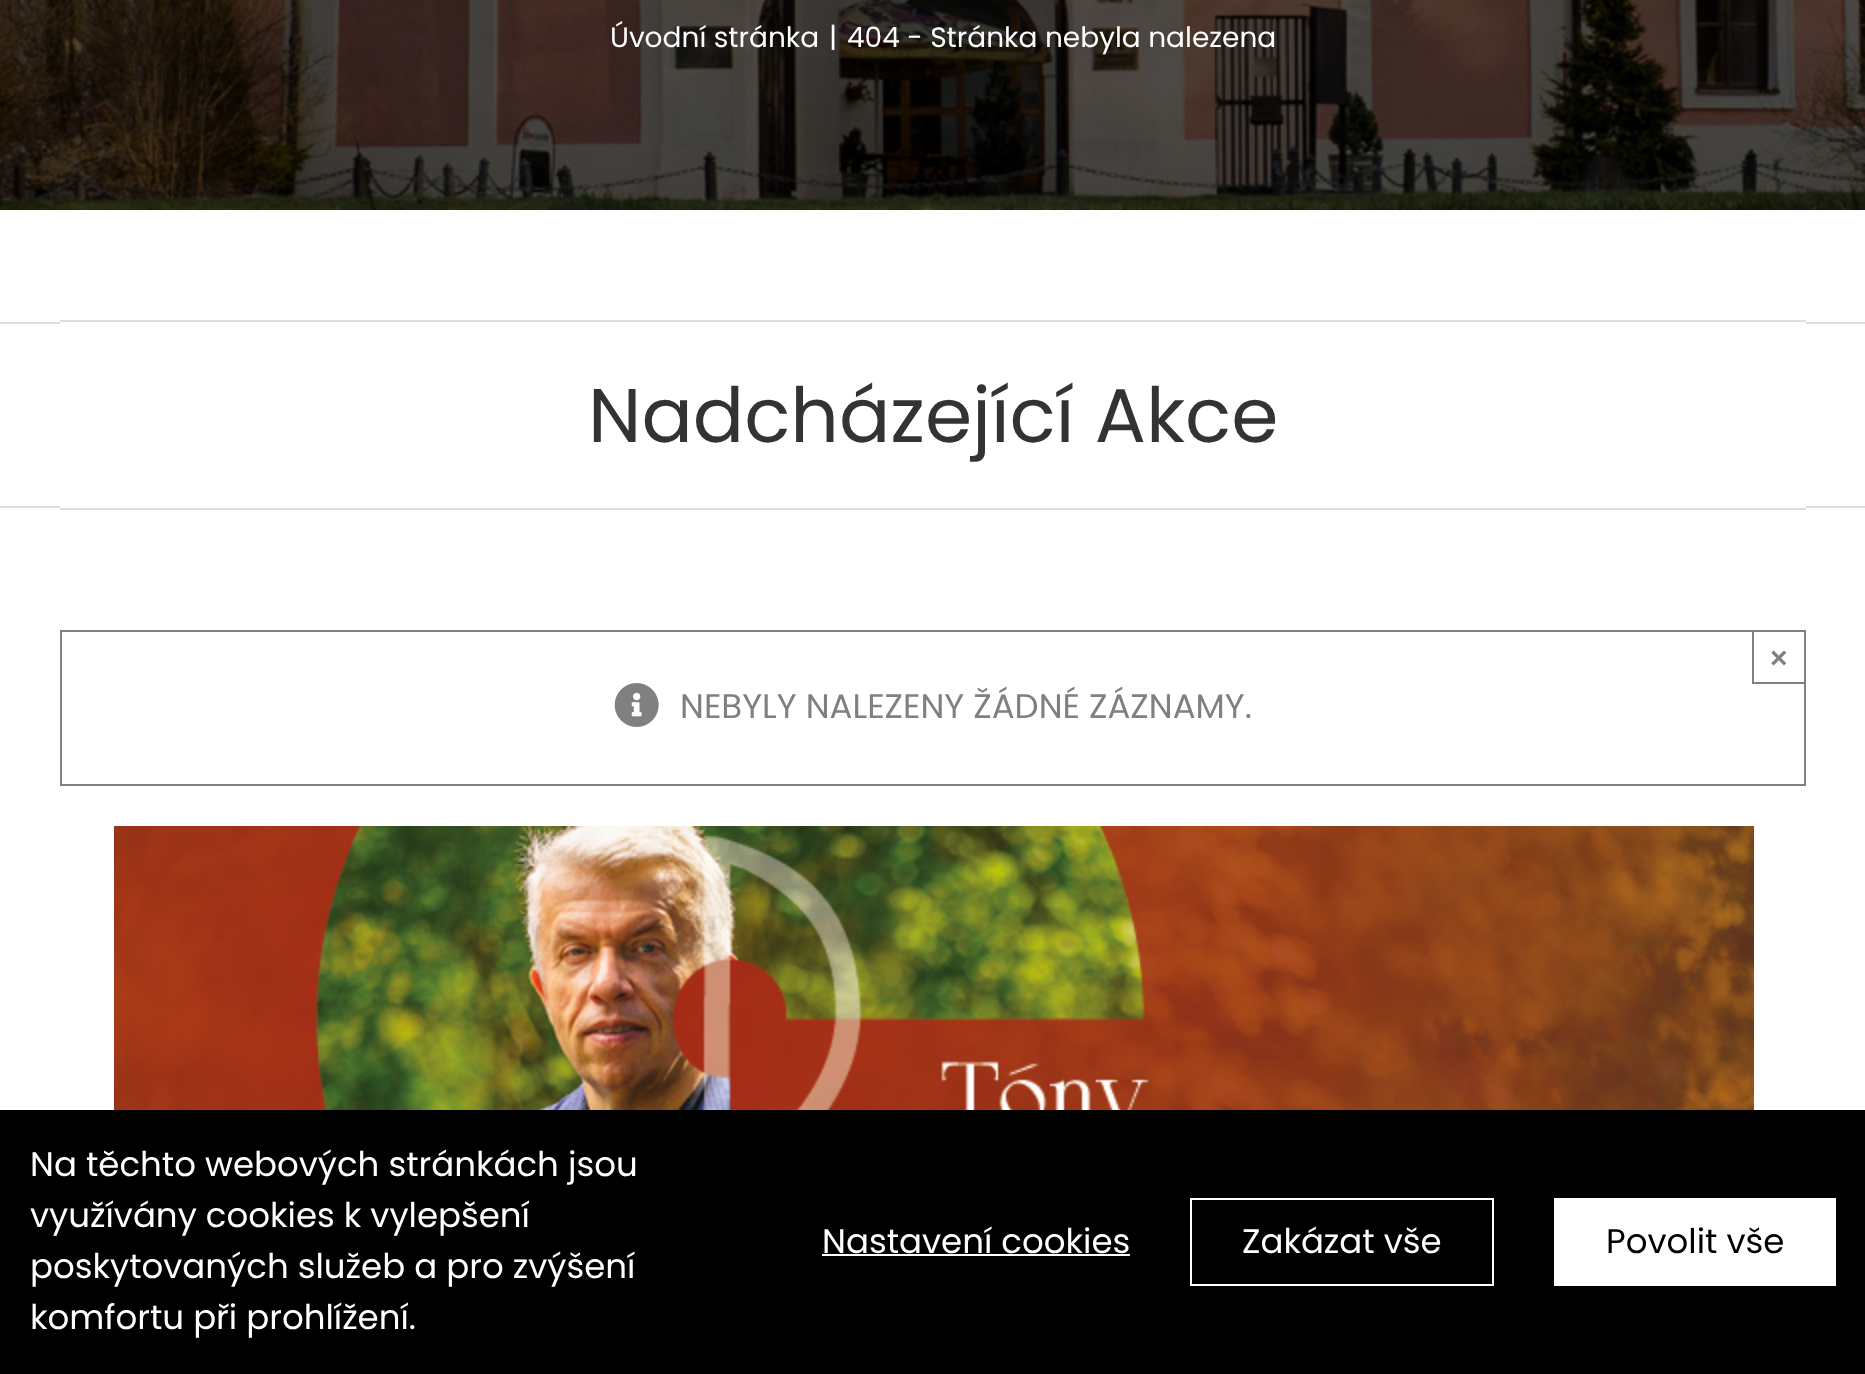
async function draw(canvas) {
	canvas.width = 1865;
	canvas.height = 1374;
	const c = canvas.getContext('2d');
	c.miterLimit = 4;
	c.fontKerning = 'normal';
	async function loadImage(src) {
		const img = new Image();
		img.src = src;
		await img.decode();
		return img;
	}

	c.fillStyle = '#fff';
	c.fillRect(0, 0, 1865, 1374);
	c.drawImage(await loadImage('img1.png'), 0, 0, 1865, 210);
	c.font = '28px Poppins';
	for (const [text, x, y] of [
		['Úvodní stránka', 610, 47],
		['|', 829, 47],
		['404 - Stránka nebyla nalezena', 847, 47],
	]) {
		c.fillText(text, x, y);
	}
	for (const [x, y, w, h, color] of [
		[60, 320, 1746, 2, '#e0dede'],
		[60, 508, 1746, 2, '#e0dede'],
		[0, 322, 60, 2, '#e0dede'],
		[0, 506, 60, 2, '#e0dede'],
	]) {
		c.fillStyle = color;
		c.fillRect(x, y, w, h);
	}
	c.font = '76px Poppins';
	c.fillStyle = '#333';
	c.fillText('Nadcházející Akce', 588, 442);
	c.fillStyle = '#e0dede';
	c.fillRect(1806, 322, 59, 2);
	c.fillRect(1806, 506, 59, 2);
	c.strokeStyle = '#808080';
	c.lineWidth = 2;
	c.strokeRect(61, 631, 1744, 154);
	c.strokeRect(1753, 631, 52, 52);
	c.font = 'bold 30px Liberation Sans';
	c.fillStyle = '#808080';
	c.fillText('×', 1770, 668);
	c.drawImage(await loadImage('img2.png'), 614, 683, 45, 44);
	c.font = '34px Poppins';
	c.fillText('NEBYLY NALEZENY ŽÁDNÉ ZÁZNAMY.', 680, 718);
	c.drawImage(await loadImage('img3.png'), 114, 826, 1640, 284);
	c.fillStyle = '#000';
	c.fillRect(0, 1110, 1865, 264);
	c.fillStyle = '#fff';
	for (const [text, x, y] of [
		['Na těchto webových stránkách jsou', 30, 1176],
		['využívány cookies k vylepšení', 30, 1227],
		['poskytovaných služeb a pro zvýšení', 30, 1278],
		['komfortu při prohlížení.', 30, 1329],
		['Nastavení cookies', 822, 1253],
	]) {
		c.fillText(text, x, y);
	}
	c.fillRect(822, 1254, 308, 2);
	c.strokeStyle = '#fff';
	c.strokeRect(1191, 1199, 302, 86);
	c.fillText('Zakázat vše', 1242, 1253);
	c.fillRect(1554, 1198, 282, 88);
	c.fillStyle = '#000';
	c.fillText('Povolit vše', 1606, 1253);
}

draw(document.querySelector('canvas'));
